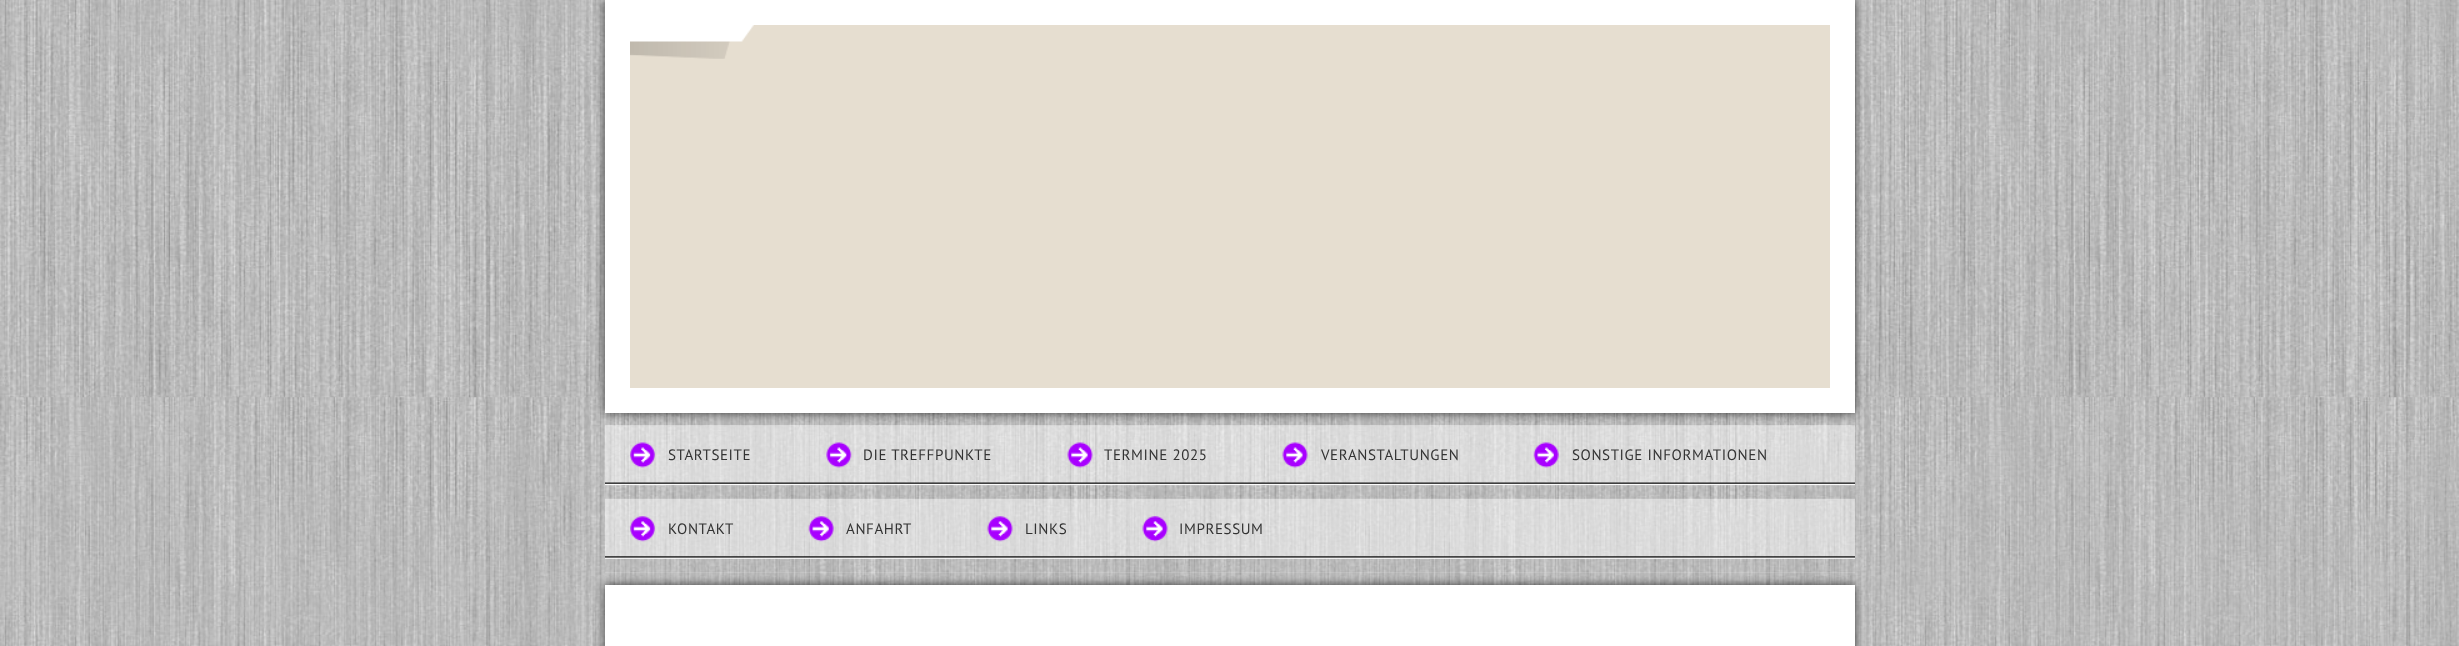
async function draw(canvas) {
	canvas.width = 2459;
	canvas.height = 646;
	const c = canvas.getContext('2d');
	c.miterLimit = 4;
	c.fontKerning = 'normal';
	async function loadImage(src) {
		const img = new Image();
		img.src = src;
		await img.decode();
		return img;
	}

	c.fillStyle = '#fff';
	c.fillRect(0, 0, 2459, 646);
	c.drawImage(await loadImage('img1.png'), 0, 0, 2459, 646);
	c.drawImage(await loadImage('img3.png'), 605, 425, 1250, 148);
	c.fillStyle = '#000000b3';
	c.filter = 'blur(5px)';
	c.beginPath();
	c.rect(605, 0, 1250, 413);
	c.fill();
	c.filter = 'none';
	c.fillStyle = '#fff';
	c.fillRect(605, 0, 1250, 413);
	c.fillStyle = '#e6ded0';
	c.fillRect(630, 25, 1200, 363);
	c.drawImage(await loadImage('img2.png'), 630, 25, 124, 34);
	c.drawImage(await loadImage('img4.png'), 630, 442, 25, 26);
	c.letterSpacing = '0.6px';
	c.font = '15px PT Sans';
	c.fillStyle = '#333';
	c.fillText('STARTSEITE', 668, 460);
	c.drawImage(await loadImage('img5.png'), 826, 442, 26, 26);
	c.fillText('DIE TREFFPUNKTE', 863, 460);
	c.drawImage(await loadImage('img6.png'), 1067, 442, 26, 26);
	c.fillText('TERMINE 2025', 1104, 460);
	c.drawImage(await loadImage('img7.png'), 1282, 442, 26, 26);
	c.fillText('VERANSTALTUNGEN', 1321, 460);
	c.drawImage(await loadImage('img8.png'), 1533, 442, 26, 26);
	c.fillText('SONSTIGE INFORMATIONEN', 1572, 460);
	c.drawImage(await loadImage('img9.png'), 630, 516, 25, 26);
	c.fillText('KONTAKT', 668, 534);
	c.drawImage(await loadImage('img10.png'), 808, 516, 26, 26);
	c.fillText('ANFAHRT', 846, 534);
	c.drawImage(await loadImage('img11.png'), 987, 516, 26, 26);
	c.fillText('LINKS', 1025, 534);
	c.drawImage(await loadImage('img12.png'), 1142, 516, 26, 26);
	c.fillText('IMPRESSUM', 1179, 534);
	c.fillStyle = '#000000b3';
	c.filter = 'blur(5px)';
	c.beginPath();
	c.rect(605, 585, 1250, 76);
	c.fill();
	c.filter = 'none';
	c.fillStyle = '#fff';
	c.fillRect(605, 585, 1250, 61);
}

draw(document.querySelector('canvas'));
